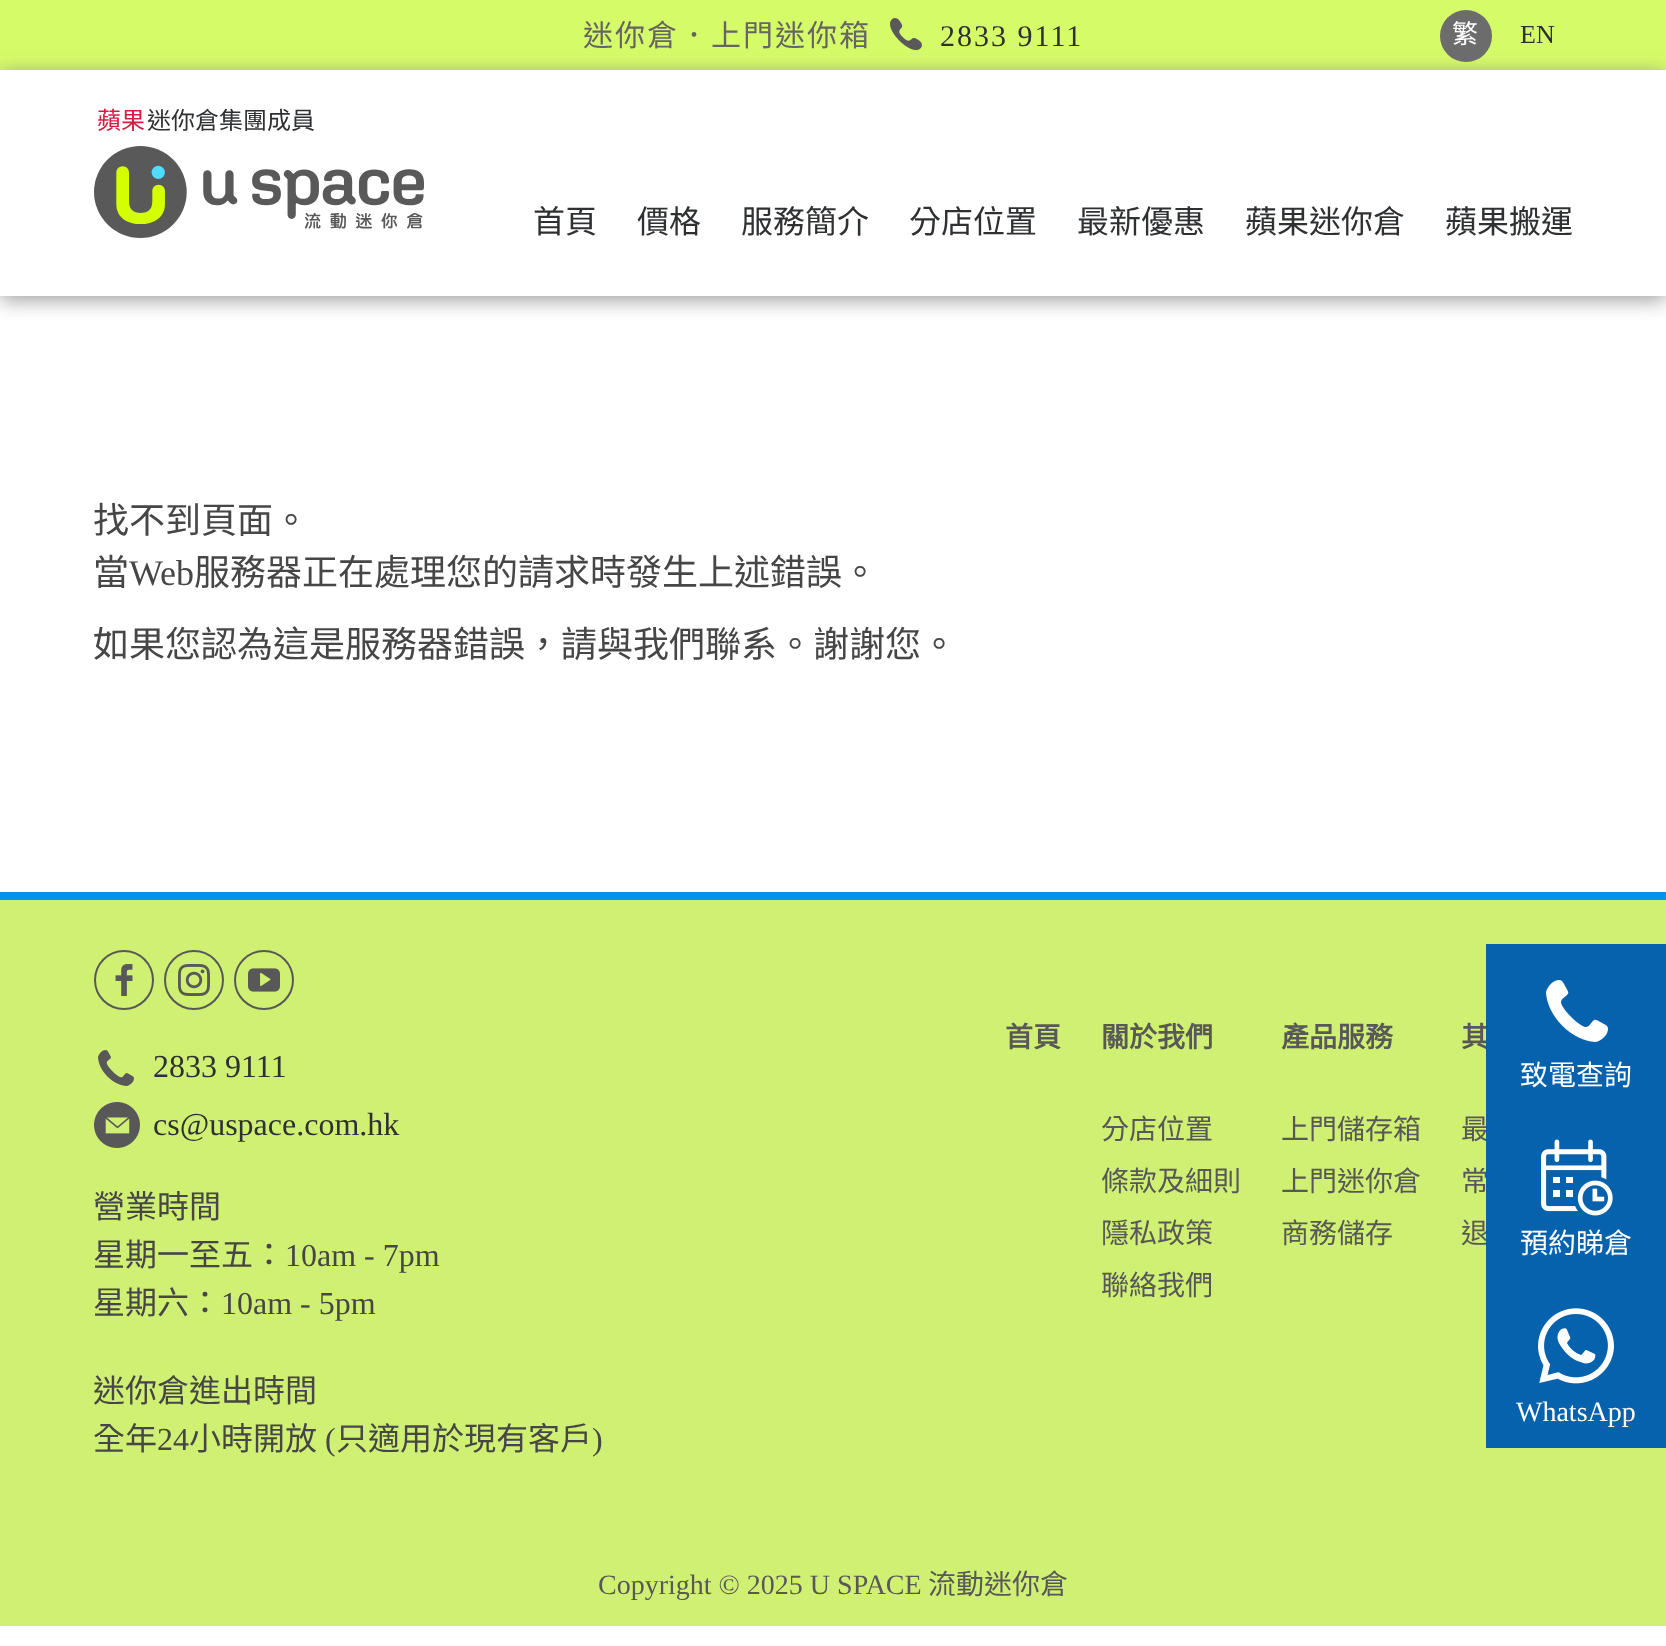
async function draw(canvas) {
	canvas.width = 1666;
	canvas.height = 1646;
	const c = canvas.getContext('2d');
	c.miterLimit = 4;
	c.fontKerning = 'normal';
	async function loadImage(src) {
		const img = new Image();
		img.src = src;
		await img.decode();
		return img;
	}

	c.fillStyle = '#fff';
	c.fillRect(0, 0, 1666, 1646);
	c.fillStyle = '#d6fb69';
	c.fillRect(0, 0, 1666, 70);
	c.save();
	c.beginPath();
	c.moveTo(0, 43);
	c.lineTo(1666, 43);
	c.lineTo(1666, 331);
	c.lineTo(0, 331);
	c.closePath();
	c.moveTo(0, 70);
	c.lineTo(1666, 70);
	c.lineTo(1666, 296);
	c.lineTo(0, 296);
	c.closePath();
	c.clip('evenodd');
	c.fillStyle = '#737373b3';
	c.filter = 'blur(10px)';
	c.beginPath();
	c.rect(0, 74, 1666, 226);
	c.fill();
	c.filter = 'none';
	c.restore();
	c.letterSpacing = '2px';
	c.font = '30px Noto Sans CJK TC';
	c.fillStyle = '#656565';
	c.fillText('迷你倉．上門迷你箱', 583, 46);
	c.drawImage(await loadImage('img1.png'), 890, 18, 32, 32);
	c.font = '30px Liberation Serif';
	c.fillStyle = '#2f3032';
	c.fillText('2833 9111', 940, 46);
	c.fillStyle = '#6c6c6c';
	c.beginPath();
	c.arc(1466, 36, 26, 0, 2 * Math.PI);
	c.fill();
	c.letterSpacing = '0px';
	c.font = '26px Noto Sans CJK TC';
	c.fillStyle = '#fff';
	c.fillText('繁', 1452, 43);
	c.font = '26px Liberation Serif';
	c.fillStyle = '#2f3032';
	c.fillText('EN', 1520, 43);
	c.font = '24px Noto Sans CJK TC';
	c.fillStyle = '#d61c43';
	c.fillText('蘋果', 97, 129);
	c.fillStyle = '#2f3032';
	c.fillText('迷你倉集團成員', 147, 129);
	c.drawImage(await loadImage('img2.png'), 94, 146, 330, 92);
	c.font = '32px Noto Sans CJK TC';
	for (const [text, x, y] of [
		['首頁', 533, 233],
		['價格', 637, 233],
		['服務簡介', 741, 233],
		['分店位置', 909, 233],
		['最新優惠', 1077, 233],
		['蘋果迷你倉', 1245, 233],
		['蘋果搬運', 1445, 233],
	]) {
		c.fillText(text, x, y);
	}
	c.font = '36px Noto Sans CJK TC';
	c.fillStyle = '#464646';
	c.fillText('找不到頁面。', 93, 533);
	c.fillText('當', 93, 585);
	c.font = '36px Liberation Serif';
	c.fillText('Web', 129, 585);
	c.font = '36px Noto Sans CJK TC';
	c.fillText('服務器正在處理您的請求時發生上述錯誤。', 194, 585);
	c.fillText('如果您認為這是服務器錯誤，請與我們聯系。謝謝您。', 93, 657);
	c.fillStyle = '#d0f073';
	c.fillRect(0, 900, 1666, 726);
	c.fillStyle = '#0093ec';
	c.fillRect(0, 892, 1666, 8);
	c.beginPath();
	c.arc(124, 980, 29, 0, 2 * Math.PI);
	c.strokeStyle = '#585858';
	c.lineWidth = 2;
	c.stroke();
	c.drawImage(await loadImage('img3.png'), 115, 964, 18, 32);
	c.beginPath();
	c.arc(194, 980, 29, 0, 2 * Math.PI);
	c.stroke();
	c.drawImage(await loadImage('img4.png'), 178, 964, 32, 32);
	c.beginPath();
	c.arc(264, 980, 29, 0, 2 * Math.PI);
	c.stroke();
	c.drawImage(await loadImage('img5.png'), 248, 968, 32, 24);
	c.drawImage(await loadImage('img6.png'), 98, 1050, 36, 36);
	c.font = '32px Liberation Serif';
	c.fillStyle = '#2f3032';
	c.fillText('2833 9111', 153, 1077);
	c.drawImage(await loadImage('img7.png'), 94, 1102, 46, 46);
	c.fillText('cs@uspace.com.hk', 153, 1135);
	c.font = '32px Noto Sans CJK TC';
	c.fillStyle = '#464646';
	c.fillText('營業時間', 93, 1218);
	c.fillText('星期一至五：', 93, 1266);
	c.font = '32px Liberation Serif';
	c.fillText('10am - 7pm', 285, 1266);
	c.font = '32px Noto Sans CJK TC';
	c.fillText('星期六：', 93, 1314);
	c.font = '32px Liberation Serif';
	c.fillText('10am - 5pm', 221, 1314);
	c.font = '32px Noto Sans CJK TC';
	c.fillText('迷你倉進出時間', 93, 1402);
	c.fillText('全年', 93, 1450);
	c.font = '32px Liberation Serif';
	c.fillText('24', 157, 1450);
	c.font = '32px Noto Sans CJK TC';
	c.fillText('小時開放', 189, 1450);
	c.font = '32px Liberation Serif';
	c.fillText('(', 325, 1450);
	c.font = '32px Noto Sans CJK TC';
	c.fillText('只適用於現有客戶', 336, 1450);
	c.font = '32px Liberation Serif';
	c.fillText(')', 592, 1450);
	c.font = 'bold 28px Noto Sans CJK TC';
	c.fillStyle = '#585858';
	c.fillText('首頁', 1005, 1047);
	c.fillText('關於我們', 1101, 1047);
	c.font = '28px Noto Sans CJK TC';
	for (const [text, x, y] of [
		['分店位置', 1101, 1139],
		['條款及細則', 1101, 1191],
		['隱私政策', 1101, 1243],
		['聯絡我們', 1101, 1295],
	]) {
		c.fillText(text, x, y);
	}
	c.font = 'bold 28px Noto Sans CJK TC';
	c.fillText('產品服務', 1281, 1047);
	c.font = '28px Noto Sans CJK TC';
	for (const [text, x, y] of [
		['上門儲存箱', 1281, 1139],
		['上門迷你倉', 1281, 1191],
		['商務儲存', 1281, 1243],
	]) {
		c.fillText(text, x, y);
	}
	c.font = 'bold 28px Noto Sans CJK TC';
	c.fillText('其', 1461, 1047);
	c.font = '28px Noto Sans CJK TC';
	for (const [text, x, y] of [
		['最', 1461, 1139],
		['常', 1461, 1191],
		['退', 1461, 1243],
	]) {
		c.fillText(text, x, y);
	}
	c.font = '28px Liberation Serif';
	c.fillText('Copyright © 2025 U SPACE', 598, 1594);
	c.font = '28px Noto Sans CJK TC';
	c.fillText('流動迷你倉', 928, 1594);
	c.fillStyle = '#005daff7';
	c.fillRect(1486, 944, 180, 504);
	c.drawImage(await loadImage('img8.png'), 1546, 980, 62, 62);
	c.fillStyle = '#fff';
	c.fillText('致電查訽', 1520, 1085);
	c.drawImage(await loadImage('img9.png'), 1541, 1139, 72, 77);
	c.fillText('預約睇倉', 1520, 1253);
	c.drawImage(await loadImage('img10.png'), 1538, 1308, 76, 76);
	c.font = '28px Liberation Serif';
	c.fillText('WhatsApp', 1516, 1421);
}

draw(document.querySelector('canvas'));
